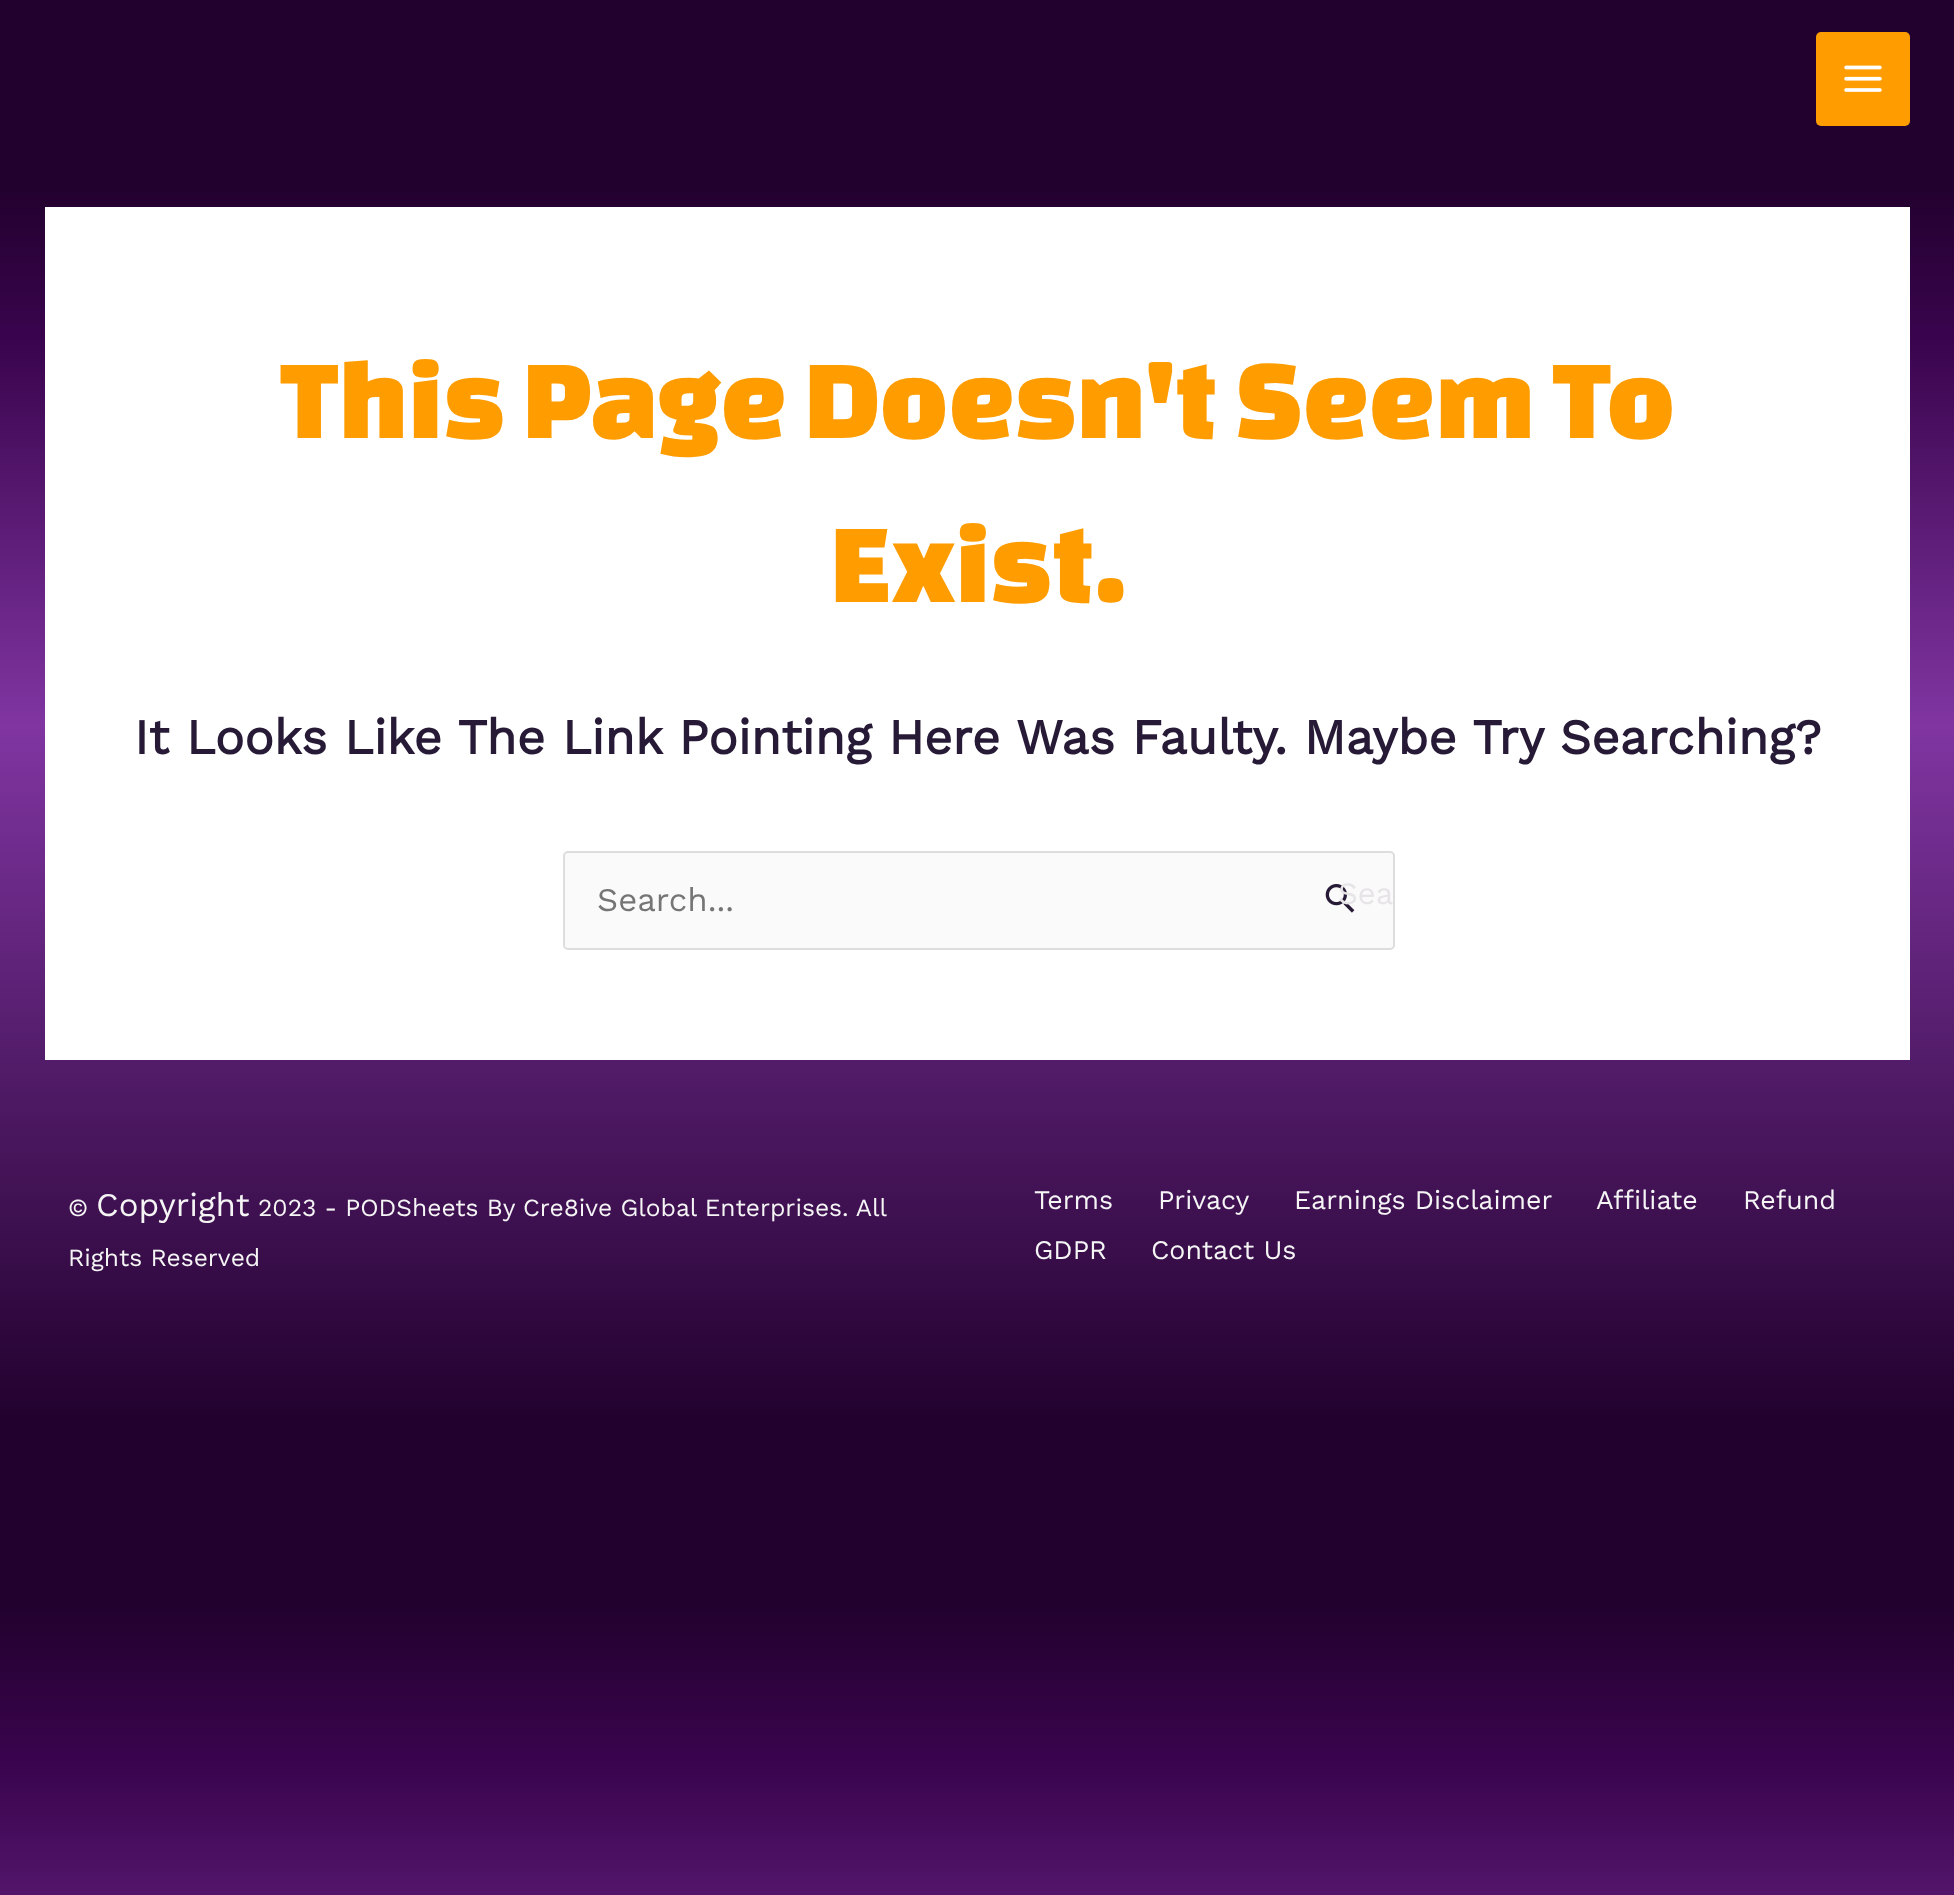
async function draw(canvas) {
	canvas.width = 1954;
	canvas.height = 1895;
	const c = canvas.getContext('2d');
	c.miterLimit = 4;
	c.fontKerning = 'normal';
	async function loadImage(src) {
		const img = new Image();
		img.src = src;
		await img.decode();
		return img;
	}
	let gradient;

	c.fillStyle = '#fff';
	c.fillRect(0, 0, 1954, 1895);
	gradient = c.createLinearGradient(978, 0, 978, 1422);
	gradient.addColorStop(0.13, '#22012e');
	gradient.addColorStop(0.24, '#3a044e');
	gradient.addColorStop(0.51, '#8035a1');
	gradient.addColorStop(1, '#22012e');
	c.fillStyle = gradient;
	c.fillRect(0, 0, 1954, 1422);
	gradient = c.createLinearGradient(978, 1422, 978, 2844);
	gradient.addColorStop(0.13, '#22012e');
	gradient.addColorStop(0.24, '#3a044e');
	gradient.addColorStop(0.51, '#8035a1');
	gradient.addColorStop(1, '#22012e');
	c.fillStyle = gradient;
	c.fillRect(0, 1422, 1954, 473);
	c.fillStyle = '#ff9c00';
	c.beginPath();
	c.roundRect(1816, 32, 94, 94, 5);
	c.fill();
	c.drawImage(await loadImage('img1.png'), 1844, 65, 38, 27);
	c.fillStyle = '#fff';
	c.fillRect(45, 207, 1865, 853);
	c.font = '117px Changa One';
	c.fillStyle = '#ff9c00';
	c.fillText('This Page Doesn\'t Seem To', 280, 438);
	c.fillText('Exist.', 830, 602);
	c.font = 'bold 49.25px Work Sans';
	c.fillStyle = '#261a36';
	c.fillText('It Looks Like The Link Pointing Here Was Faulty. Maybe Try Searching?', 134, 754);
	c.fillStyle = '#fafafa';
	c.beginPath();
	c.roundRect(564, 852, 830, 97, 4);
	c.fill();
	c.strokeStyle = '#ddd';
	c.lineWidth = 2;
	c.stroke();
	c.drawImage(await loadImage('img2.png'), 1325, 884, 30, 29);
	c.font = '31px Work Sans';
	c.fillStyle = '#e6e4e7';
	c.fillText('Sea', 1338, 904);
	c.font = '33px Work Sans';
	c.fillStyle = '#757575';
	c.fillText('Search...', 597, 911);
	c.font = '24.6px Work Sans';
	c.fillStyle = '#f5f5f5';
	c.fillText('©', 68, 1216);
	c.font = '33px Work Sans';
	c.fillText('Copyright', 96, 1216);
	c.wordSpacing = '-0.25px';
	c.font = '24.6px Work Sans';
	c.fillText('2023 - PODSheets By Cre8ive Global Enterprises. All', 258, 1216);
	c.wordSpacing = '0px';
	c.fillText('Rights Reserved', 68, 1266);
	c.font = '26.75px Work Sans';
	for (const [text, x, y] of [
		['Terms', 1034, 1209],
		['Privacy', 1158, 1209],
		['Earnings Disclaimer', 1294, 1209],
		['Affiliate', 1596, 1209],
		['Refund', 1743, 1209],
		['GDPR', 1034, 1259],
		['Contact Us', 1151, 1259],
	]) {
		c.fillText(text, x, y);
	}
}

draw(document.querySelector('canvas'));
